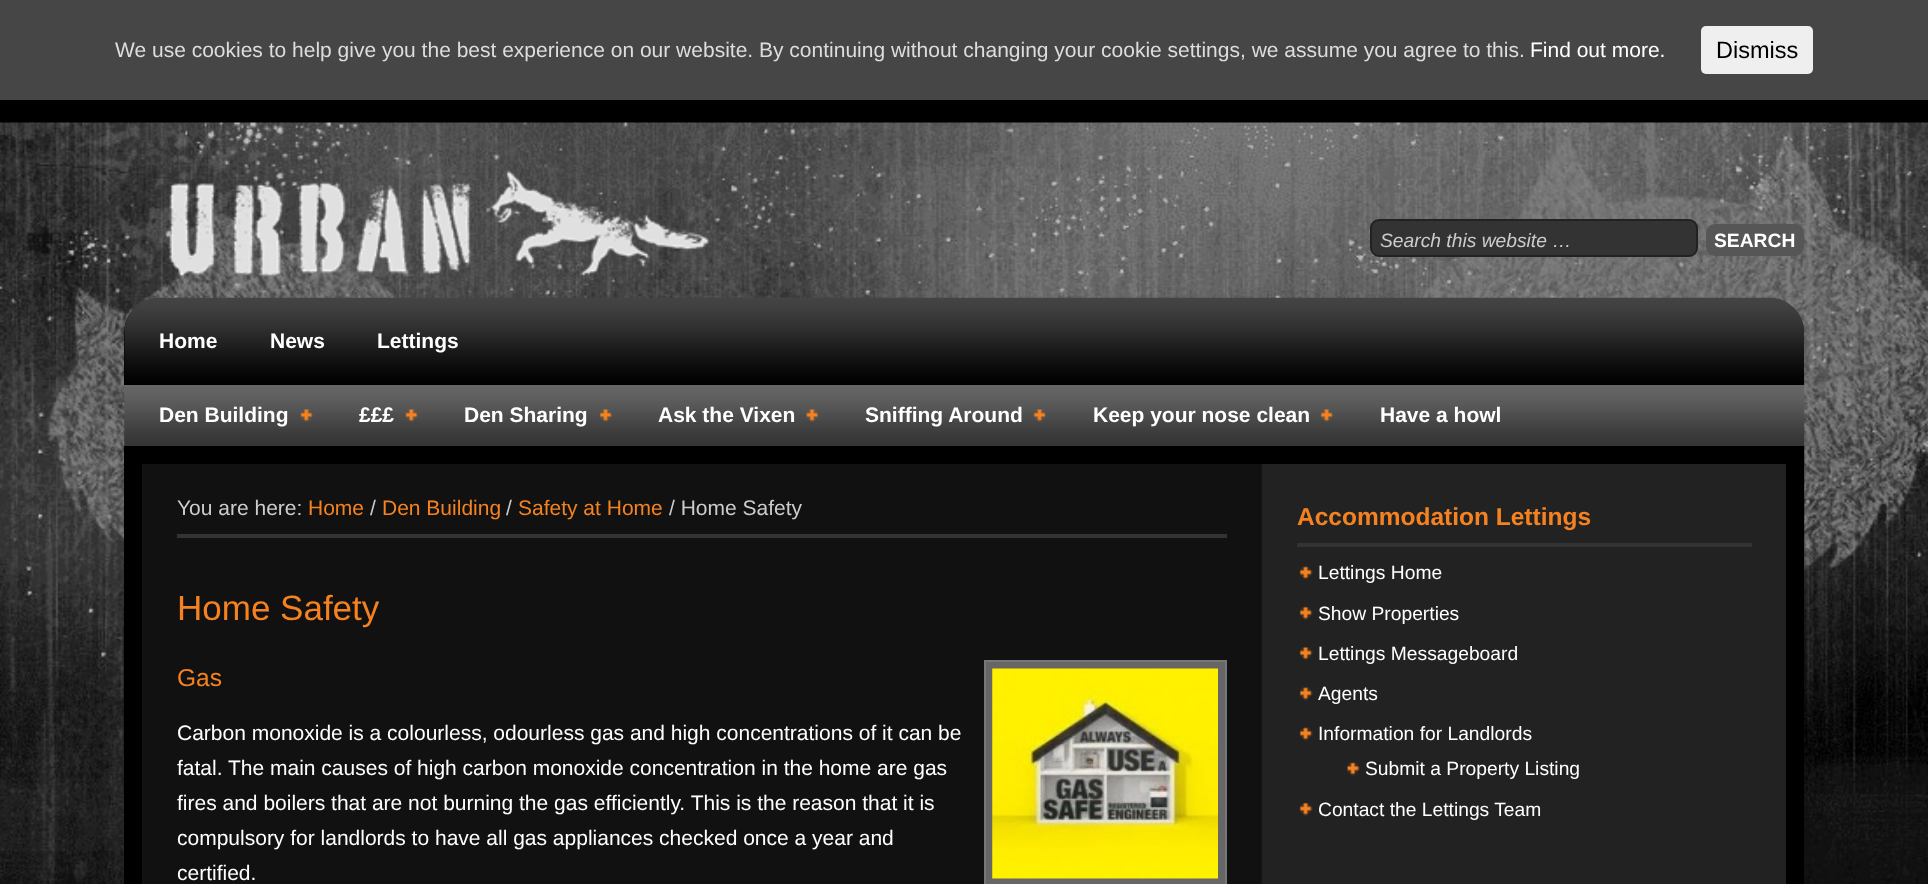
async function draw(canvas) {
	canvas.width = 1928;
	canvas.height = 884;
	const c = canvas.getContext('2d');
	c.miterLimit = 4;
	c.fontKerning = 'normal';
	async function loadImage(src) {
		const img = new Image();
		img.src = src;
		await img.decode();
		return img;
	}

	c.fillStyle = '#000';
	c.fillRect(0, 0, 1928, 884);
	c.drawImage(await loadImage('img1.png'), 0, 122, 1928, 762);
	c.fillStyle = '#464646';
	c.fillRect(0, 0, 1928, 100);
	c.font = '21px Liberation Sans';
	c.fillStyle = '#ddd';
	c.fillText('We use cookies to help give you the best experience on our website. By continuing without changing your cookie settings, we assume you agree to this.', 115, 57);
	c.fillStyle = '#fff';
	c.fillText('Find out more.', 1530, 57);
	c.fillStyle = '#efefef';
	c.beginPath();
	c.roundRect(1701, 26, 112, 48, 5);
	c.fill();
	c.font = '23.5px Liberation Sans';
	c.fillStyle = '#000';
	c.fillText('Dismiss', 1716, 58);
	c.drawImage(await loadImage('img2.png'), 168, 171, 542, 107);
	c.fillStyle = '#333';
	c.beginPath();
	c.roundRect(1371, 220, 326, 36, 8);
	c.fill();
	c.strokeStyle = '#222';
	c.lineWidth = 2;
	c.stroke();
	c.font = 'italic 19.25px Liberation Sans';
	c.fillStyle = '#ccc';
	c.fillText('Search this website …', 1380, 247);
	c.fillStyle = '#565656';
	c.beginPath();
	c.roundRect(1706, 224, 98, 32, 9);
	c.fill();
	c.font = 'bold 19.25px Liberation Sans';
	c.fillStyle = '#fff';
	c.fillText('SEARCH', 1714, 247);
	c.fillStyle = '#000';
	c.beginPath();
	c.roundRect(124, 298, 1680, 87, [35, 35, 0, 0]);
	c.fill();
	c.drawImage(await loadImage('img3.png'), 124, 297, 1681, 88);
	c.font = 'bold 21px Liberation Sans';
	c.fillStyle = '#fff';
	for (const [text, x, y] of [
		['Home', 159, 348],
		['News', 270, 348],
		['Lettings', 377, 348],
	]) {
		c.fillText(text, x, y);
	}
	c.drawImage(await loadImage('img4.png'), 124, 385, 1681, 62);
	c.fillText('Den Building', 159, 422);
	c.drawImage(await loadImage('img5.png'), 300, 409, 14, 13);
	c.fillText('£££', 359, 422);
	c.drawImage(await loadImage('img6.png'), 405, 409, 14, 13);
	c.fillText('Den Sharing', 464, 422);
	c.drawImage(await loadImage('img7.png'), 599, 409, 14, 13);
	c.fillText('Ask the Vixen', 658, 422);
	c.drawImage(await loadImage('img8.png'), 806, 409, 14, 13);
	c.fillText('Sniffing Around', 865, 422);
	c.drawImage(await loadImage('img7.png'), 1033, 409, 14, 13);
	c.fillText('Keep your nose clean', 1093, 422);
	c.drawImage(await loadImage('img7.png'), 1320, 409, 14, 13);
	c.fillText('Have a howl', 1380, 422);
	c.drawImage(await loadImage('img9.png'), 142, 446, 1663, 438);
	c.strokeStyle = '#000';
	c.lineWidth = 18;
	c.strokeRect(133, 455, 1662, 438);
	c.fillStyle = '#333';
	c.fillRect(177, 534, 1050, 4);
	c.font = '21px Liberation Sans';
	c.fillStyle = '#ccc';
	c.fillText('You are here:', 177, 515);
	c.fillStyle = '#f58221';
	c.fillText('Home', 308, 515);
	c.fillStyle = '#ccc';
	c.fillText('/', 370, 515);
	c.fillStyle = '#f58221';
	c.fillText('Den Building', 382, 515);
	c.fillStyle = '#ccc';
	c.fillText('/', 506, 515);
	c.fillStyle = '#f58221';
	c.fillText('Safety at Home', 518, 515);
	c.fillStyle = '#ccc';
	c.fillText('/ Home Safety', 669, 515);
	c.font = '35px Liberation Sans';
	c.fillStyle = '#f58221';
	c.fillText('Home Safety', 177, 620);
	c.font = '24.5px Liberation Sans';
	c.fillText('Gas', 177, 686);
	c.fillStyle = '#666';
	c.beginPath();
	c.rect(985, 661, 241, 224);
	c.fill();
	c.strokeStyle = '#777';
	c.lineWidth = 2;
	c.stroke();
	c.drawImage(await loadImage('img10.png'), 992, 668, 226, 211);
	c.font = '21px Liberation Sans';
	c.fillStyle = '#fff';
	for (const [text, x, y] of [
		['Carbon monoxide is a colourless, odourless gas and high concentrations of it can be', 177, 740],
		['fatal. The main causes of high carbon monoxide concentration in the home are gas', 177, 775],
		['fires and boilers that are not burning the gas efficiently. This is the reason that it is', 177, 810],
		['compulsory for landlords to have all gas appliances checked once a year and', 177, 845],
		['certified.', 177, 880],
	]) {
		c.fillText(text, x, y);
	}
	c.fillStyle = '#333';
	c.fillRect(1297, 543, 455, 4);
	c.font = 'bold 24.5px Liberation Sans';
	c.fillStyle = '#f58221';
	c.fillText('Accommodation Lettings', 1297, 525);
	c.drawImage(await loadImage('img11.png'), 1299, 566, 14, 14);
	c.font = '19.25px Liberation Sans';
	c.fillStyle = '#fff';
	c.fillText('Lettings Home', 1318, 579);
	c.drawImage(await loadImage('img12.png'), 1299, 606, 14, 14);
	c.fillText('Show Properties', 1318, 620);
	c.drawImage(await loadImage('img13.png'), 1299, 647, 14, 13);
	c.fillText('Lettings Messageboard', 1318, 660);
	c.drawImage(await loadImage('img14.png'), 1299, 687, 14, 14);
	c.fillText('Agents', 1318, 700);
	c.drawImage(await loadImage('img11.png'), 1299, 727, 14, 14);
	c.fillText('Information for Landlords', 1318, 740);
	c.drawImage(await loadImage('img15.png'), 1347, 762, 13, 14);
	c.fillText('Submit a Property Listing', 1365, 775);
	c.drawImage(await loadImage('img12.png'), 1299, 802, 14, 14);
	c.fillText('Contact the Lettings Team', 1318, 816);
}

draw(document.querySelector('canvas'));
